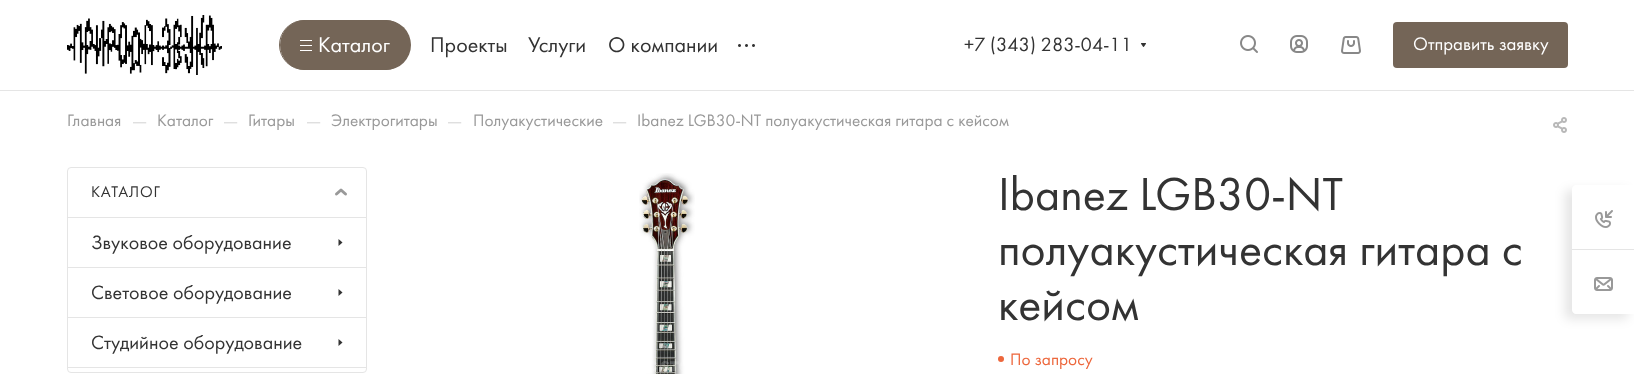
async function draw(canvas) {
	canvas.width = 1634;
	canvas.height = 374;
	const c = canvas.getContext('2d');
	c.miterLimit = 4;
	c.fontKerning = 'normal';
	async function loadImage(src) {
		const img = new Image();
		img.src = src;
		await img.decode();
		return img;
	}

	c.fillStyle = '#fff';
	c.fillRect(0, 0, 1634, 374);
	c.fillStyle = '#e5e5e5';
	c.fillRect(0, 90, 1634, 1);
	c.drawImage(await loadImage('img1.png'), 67, 15, 155, 60);
	c.beginPath();
	c.roundRect(279.5, 20.5, 130, 49, 24.5);
	c.strokeStyle = '#746557';
	c.stroke();
	c.fillStyle = '#746557';
	c.beginPath();
	c.roundRect(280, 20, 131, 50, 25);
	c.fill();
	for (const [x, y, w, h, color] of [
		[300, 40, 12, 1, '#fff'],
		[300, 45, 12, 1, '#fff'],
		[300, 50, 12, 1, '#fff'],
	]) {
		c.fillStyle = color;
		c.fillRect(x, y, w, h);
	}
	c.font = '22px Futura';
	c.fillText('Каталог', 318, 52);
	c.fillStyle = '#333';
	for (const [text, x, y] of [
		['Проекты', 430, 52],
		['Услуги', 528, 52],
		['О компании', 608, 52],
	]) {
		c.fillText(text, x, y);
	}
	c.drawImage(await loadImage('img2.png'), 738, 44, 17, 3);
	c.font = '20px Futura';
	c.fillText('+7 (343) 283-04-11', 964, 51);
	c.drawImage(await loadImage('img3.png'), 1141, 43, 5, 4);
	c.drawImage(await loadImage('img4.png'), 1240, 35, 18, 18);
	c.drawImage(await loadImage('img5.png'), 1290, 35, 18, 18);
	c.drawImage(await loadImage('img6.png'), 1341, 36, 20, 18);
	c.fillStyle = '#746557';
	c.beginPath();
	c.roundRect(1393, 22, 175, 46, 4);
	c.fill();
	c.font = '18.75px Futura';
	c.fillStyle = '#fff';
	c.fillText('Отправить заявку', 1413, 50);
	c.font = '17.3px Futura';
	c.fillStyle = '#999';
	c.fillText('Главная', 67, 126);
	c.font = '20px Futura';
	c.fillStyle = '#ddd';
	c.fillText('—', 132, 127);
	c.font = '17.3px Futura';
	c.fillStyle = '#999';
	c.fillText('Каталог', 157, 126);
	c.font = '20px Futura';
	c.fillStyle = '#ddd';
	c.fillText('—', 223, 127);
	c.font = '17.3px Futura';
	c.fillStyle = '#999';
	c.fillText('Гитары', 248, 126);
	c.font = '20px Futura';
	c.fillStyle = '#ddd';
	c.fillText('—', 306, 127);
	c.font = '17.3px Futura';
	c.fillStyle = '#999';
	c.fillText('Электрогитары', 331, 126);
	c.font = '20px Futura';
	c.fillStyle = '#ddd';
	c.fillText('—', 447, 127);
	c.font = '17.3px Futura';
	c.fillStyle = '#999';
	c.fillText('Полуакустические', 473, 126);
	c.font = '20px Futura';
	c.fillStyle = '#ddd';
	c.fillText('—', 612, 127);
	c.font = '17.3px Futura';
	c.fillStyle = '#999';
	c.fillText('Ibanez LGB30-NT полуакустическая гитара с кейсом', 637, 126);
	c.drawImage(await loadImage('img7.png'), 1553, 117, 14, 16);
	c.beginPath();
	c.roundRect(67.5, 167.5, 299, 50, [3.5, 3.5, 0, 0]);
	c.strokeStyle = '#e5e5e5';
	c.stroke();
	c.letterSpacing = '0.75px';
	c.font = '16px Futura';
	c.fillStyle = '#333';
	c.fillText('КАТАЛОГ', 91, 197);
	c.beginPath();
	c.moveTo(336.5, 194);
	c.lineTo(341, 190);
	c.lineTo(345.5, 194);
	c.strokeStyle = '#999';
	c.lineWidth = 3;
	c.lineCap = 'round';
	c.lineJoin = 'round';
	c.stroke();
	c.beginPath();
	c.roundRect(67.5, 217.5, 299, 155, [0, 0, 3.5, 3.5]);
	c.strokeStyle = '#e5e5e5';
	c.lineWidth = 1;
	c.lineJoin = 'miter';
	c.stroke();
	c.letterSpacing = '0px';
	c.font = '20px Futura';
	c.fillText('Звуковое оборудование', 91, 249);
	c.beginPath();
	c.moveTo(338.5, 246);
	c.lineTo(338.5, 239);
	c.lineTo(342.5, 242.5);
	c.closePath();
	c.fill('evenodd');
	c.fillStyle = '#e5e5e5';
	c.fillRect(68, 267, 298, 1);
	c.fillStyle = '#333';
	c.fillText('Световое оборудование', 91, 299);
	c.beginPath();
	c.moveTo(338.5, 296);
	c.lineTo(338.5, 289);
	c.lineTo(342.5, 292.5);
	c.closePath();
	c.fill('evenodd');
	c.fillStyle = '#e5e5e5';
	c.fillRect(68, 317, 298, 1);
	c.fillStyle = '#333';
	c.fillText('Студийное оборудование', 91, 349);
	c.beginPath();
	c.moveTo(338.5, 346);
	c.lineTo(338.5, 339);
	c.lineTo(342.5, 342.5);
	c.closePath();
	c.fill('evenodd');
	c.fillStyle = '#e5e5e5';
	c.fillRect(68, 367, 298, 1);
	c.drawImage(await loadImage('img8.png'), 639, 173, 56, 201);
	c.font = '48px Futura';
	c.fillStyle = '#333';
	for (const [text, x, y] of [
		['Ibanez LGB30-NT', 998, 210],
		['полуакустическая гитара с', 998, 265],
		['кейсом', 998, 320],
	]) {
		c.fillText(text, x, y);
	}
	c.fillStyle = '#ed673c';
	c.beginPath();
	c.arc(1001, 359, 3, 0, 2 * Math.PI);
	c.fill();
	c.font = '17.3px Futura';
	c.fillText('По запросу', 1010, 365);
	c.fillStyle = '#0000001a';
	c.filter = 'blur(5.5px)';
	c.beginPath();
	c.roundRect(1565, 190, 63, 129, 4);
	c.fill();
	c.filter = 'none';
	c.fillStyle = '#fff';
	c.beginPath();
	c.moveTo(1576, 185);
	c.lineTo(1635, 185);
	c.lineTo(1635, 314);
	c.lineTo(1576, 314);
	c.bezierCurveTo(1574, 314, 1572, 312, 1572, 310);
	c.lineTo(1572, 189);
	c.bezierCurveTo(1572, 187, 1574, 185, 1576, 185);
	c.closePath();
	c.fill();
	c.drawImage(await loadImage('img9.png'), 1595, 210, 18, 18);
	c.fillStyle = '#e5e5e5';
	c.fillRect(1572, 249, 62, 1);
	c.drawImage(await loadImage('img10.png'), 1594, 277, 19, 14);
}

draw(document.querySelector('canvas'));
